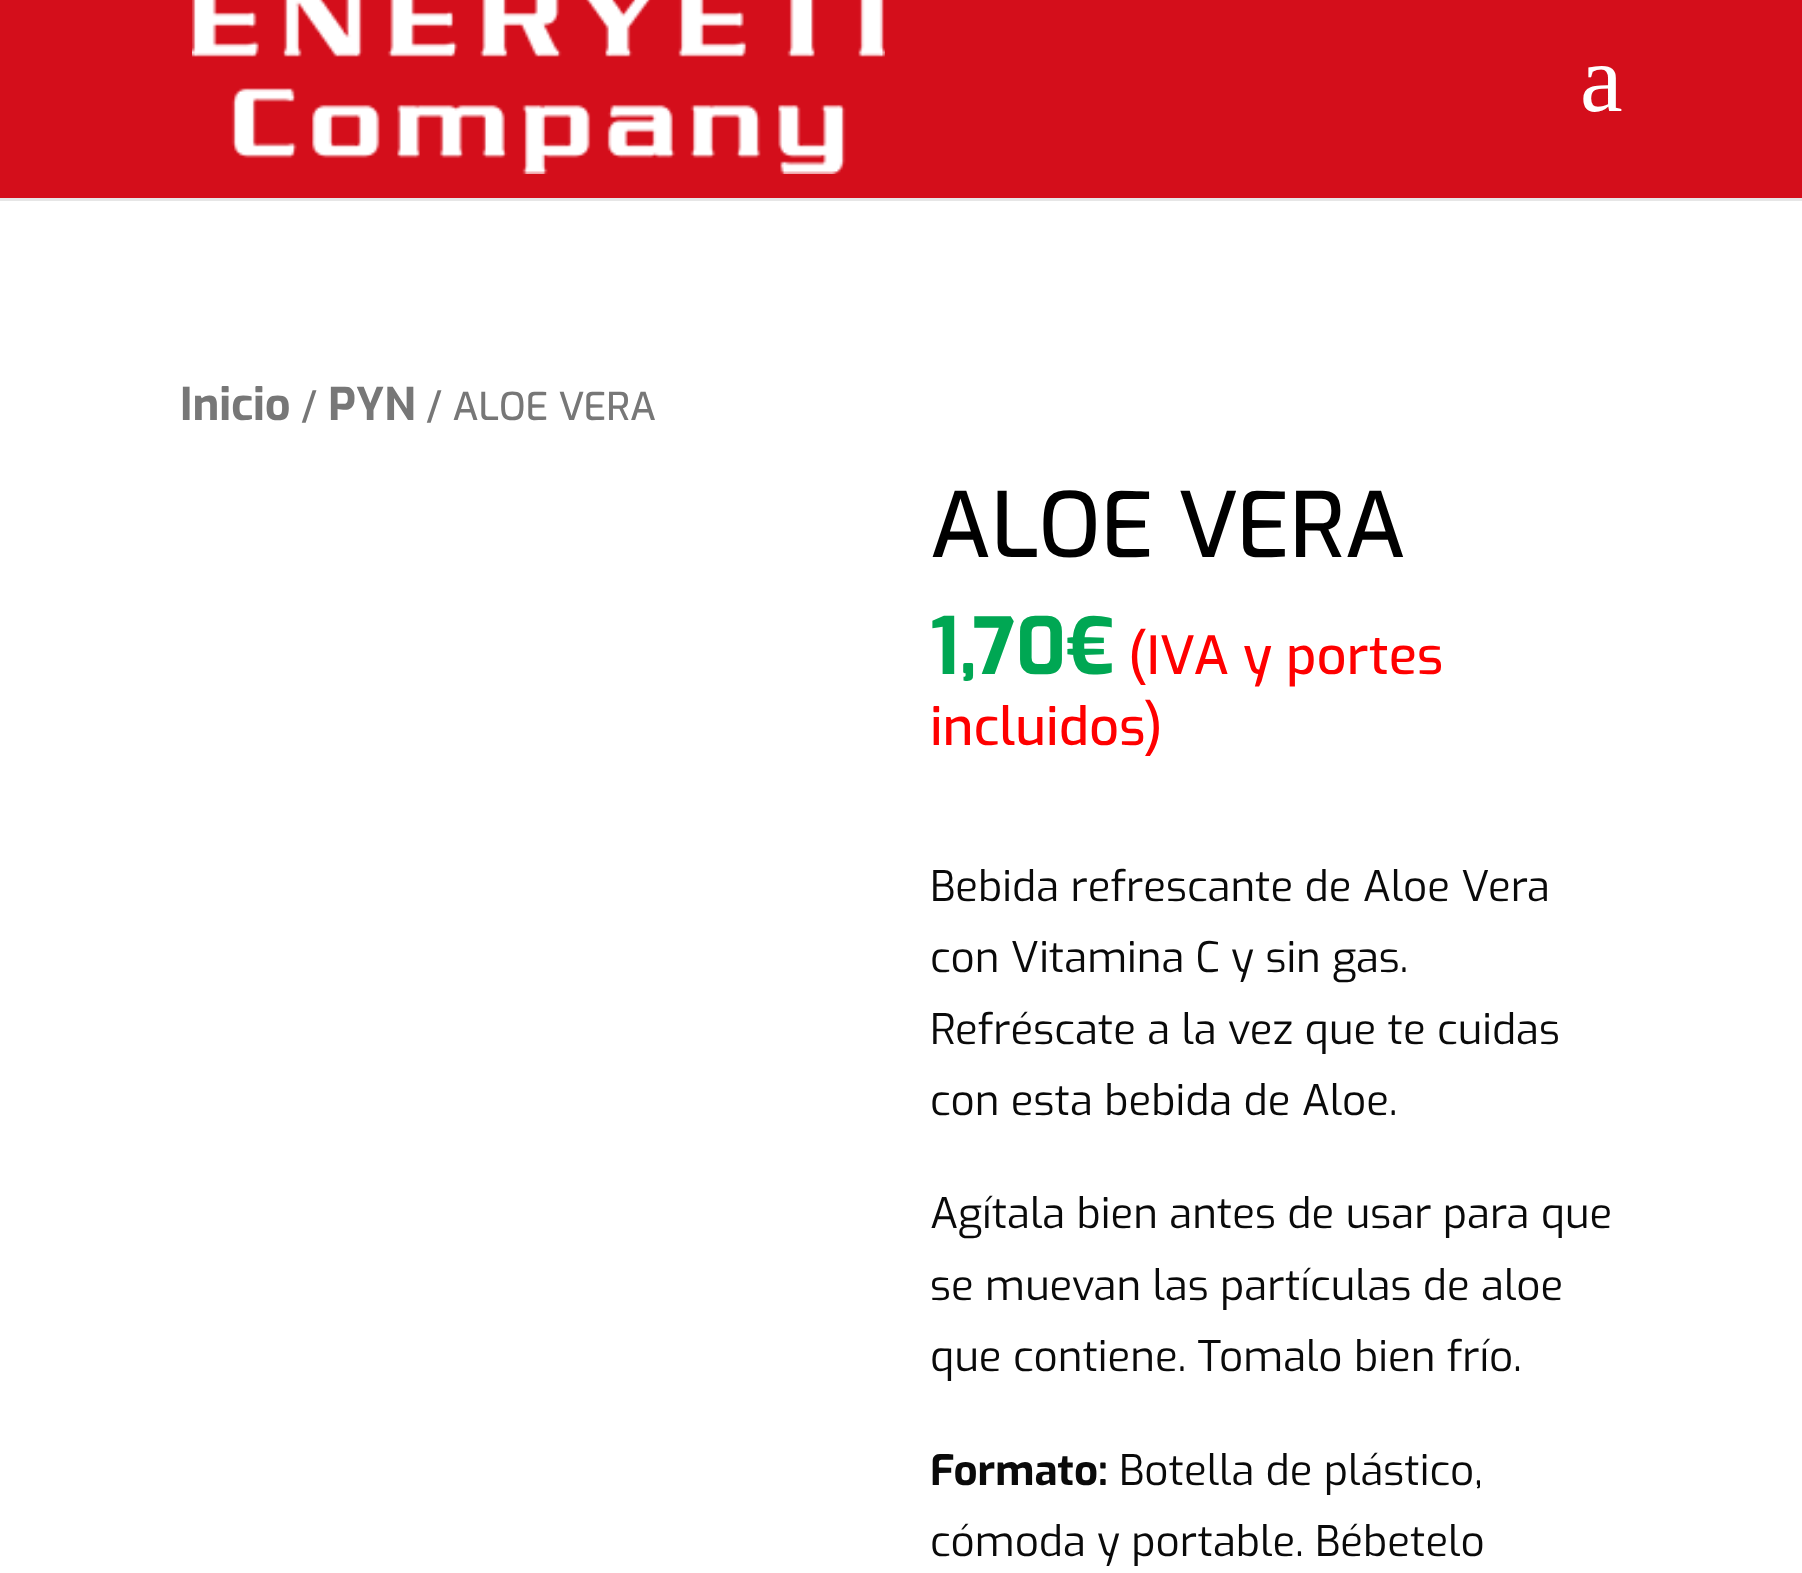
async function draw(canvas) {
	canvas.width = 1802;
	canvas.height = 1573;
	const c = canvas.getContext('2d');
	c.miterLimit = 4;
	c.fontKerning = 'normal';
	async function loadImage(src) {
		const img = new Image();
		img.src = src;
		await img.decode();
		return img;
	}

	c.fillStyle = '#fff';
	c.fillRect(0, 0, 1802, 1573);
	c.fillStyle = '#e6e6e6';
	c.fillRect(0, 198, 1802, 3);
	c.fillStyle = '#d40e1b';
	c.fillRect(0, 0, 1802, 198);
	c.drawImage(await loadImage('img1.png'), 192, 0, 693, 174);
	c.font = '96px Liberation Serif';
	c.fillStyle = '#fff';
	c.fillText('a', 1580, 111);
	c.font = 'bold 45px Exo';
	c.fillStyle = '#777';
	c.fillText('Inicio', 180, 420);
	c.font = '500 38.5px Exo';
	c.fillText('/', 301, 420);
	c.font = 'bold 45px Exo';
	c.fillText('PYN', 328, 420);
	c.font = '500 38.5px Exo';
	c.fillText('/ ALOE VERA', 426, 420);
	c.font = '500 90px Exo';
	c.fillStyle = '#000';
	c.fillText('ALOE VERA', 930, 557);
	c.font = 'bold 78px Exo';
	c.fillStyle = '#00a753';
	c.fillText('1,70€', 930, 674);
	c.font = '500 52.5px Exo';
	c.fillStyle = '#f00';
	c.fillText('(IVA y portes', 1128, 674);
	c.fillText('incluidos)', 930, 745);
	c.font = '42px Exo';
	c.fillStyle = '#0a0a0a';
	for (const [text, x, y] of [
		['Bebida refrescante de Aloe Vera', 930, 901],
		['con Vitamina C y sin gas.', 930, 972],
		['Refréscate a la vez que te cuidas', 930, 1044],
		['con esta bebida de Aloe.', 930, 1115],
		['Agítala bien antes de usar para que', 930, 1228],
		['se muevan las partículas de aloe', 930, 1300],
		['que contiene. Tomalo bien frío.', 930, 1371],
	]) {
		c.fillText(text, x, y);
	}
	c.font = 'bold 42px Exo';
	c.fillText('Formato:', 930, 1485);
	c.font = '42px Exo';
	c.fillText('Botella de plástico,', 1119, 1485);
	c.fillText('cómoda y portable. Bébetelo', 930, 1556);
}

draw(document.querySelector('canvas'));
